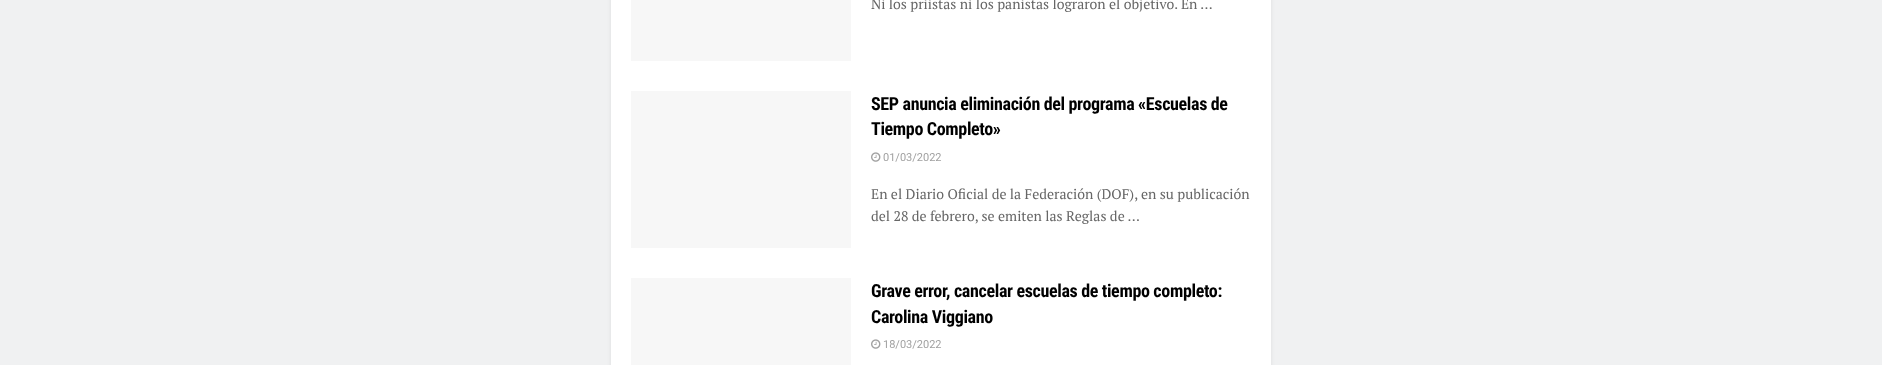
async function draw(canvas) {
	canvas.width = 1882;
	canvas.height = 365;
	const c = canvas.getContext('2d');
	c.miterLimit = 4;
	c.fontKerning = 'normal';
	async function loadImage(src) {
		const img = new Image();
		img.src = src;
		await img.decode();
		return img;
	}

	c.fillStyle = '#f0f1f2';
	c.fillRect(0, 0, 1882, 365);
	c.fillStyle = '#00000014';
	c.filter = 'blur(2px)';
	c.beginPath();
	c.rect(611, -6, 660, 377);
	c.fill();
	c.filter = 'none';
	c.fillStyle = '#fff';
	c.fillRect(611, 0, 660, 365);
	c.fillStyle = '#f7f7f7';
	c.fillRect(631, 0, 220, 61);
	c.font = '14px PT Serif';
	c.fillStyle = '#666';
	c.fillText('Ni los priistas ni los panistas lograron el objetivo. En ...', 871, 9);
	c.fillStyle = '#f7f7f7';
	c.fillRect(631, 91, 220, 157);
	c.letterSpacing = '-0.35px';
	c.font = 'bold 18px Roboto Condensed';
	c.fillStyle = '#000';
	c.fillText('SEP anuncia eliminación del programa «Escuelas de', 871, 110);
	c.fillText('Tiempo Completo»', 871, 135);
	c.drawImage(await loadImage('img1.png'), 871, 152, 10, 10);
	c.letterSpacing = '0px';
	c.font = '11px Roboto';
	c.fillStyle = '#a0a0a0';
	c.fillText('01/03/2022', 883, 161);
	c.font = '14px PT Serif';
	c.fillStyle = '#666';
	c.fillText('En el Diario Oficial de la Federación (DOF), en su publicación', 871, 199);
	c.fillText('del 28 de febrero, se emiten las Reglas de ...', 871, 221);
	c.fillStyle = '#f7f7f7';
	c.fillRect(631, 278, 220, 87);
	c.letterSpacing = '-0.35px';
	c.font = 'bold 18px Roboto Condensed';
	c.fillStyle = '#000';
	c.fillText('Grave error, cancelar escuelas de tiempo completo:', 871, 297);
	c.fillText('Carolina Viggiano', 871, 323);
	c.drawImage(await loadImage('img1.png'), 871, 339, 10, 10);
	c.letterSpacing = '0px';
	c.font = '11px Roboto';
	c.fillStyle = '#a0a0a0';
	c.fillText('18/03/2022', 883, 348);
}

draw(document.querySelector('canvas'));
